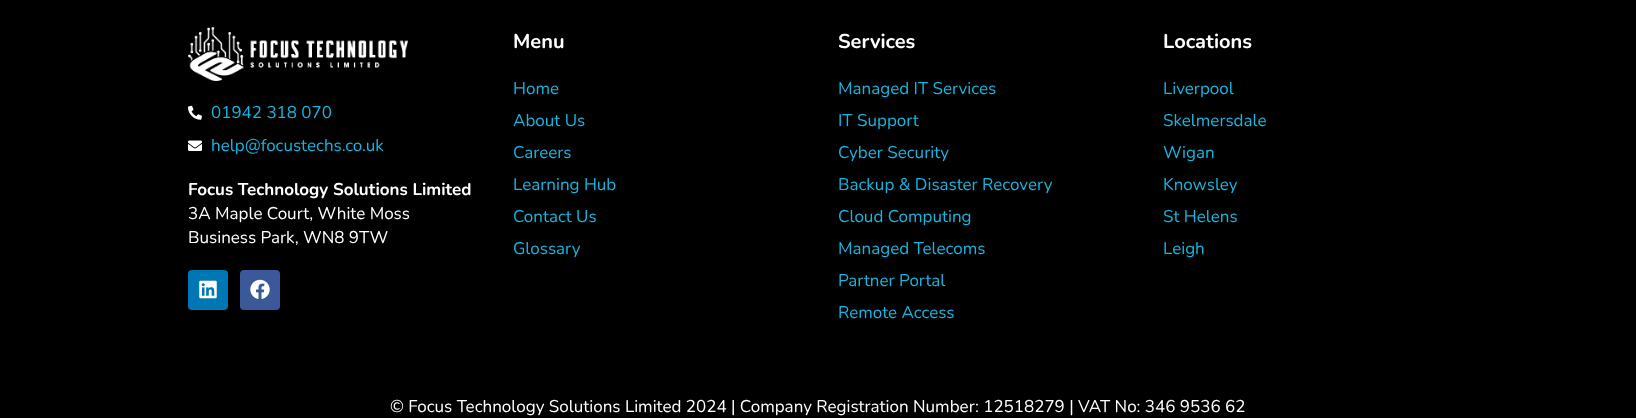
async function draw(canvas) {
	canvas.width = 1636;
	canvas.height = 418;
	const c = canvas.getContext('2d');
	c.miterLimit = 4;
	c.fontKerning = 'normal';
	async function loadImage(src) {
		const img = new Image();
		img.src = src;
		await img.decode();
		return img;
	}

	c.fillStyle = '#000';
	c.fillRect(0, 0, 1636, 418);
	c.drawImage(await loadImage('img1.png'), 188, 27, 220, 54);
	c.drawImage(await loadImage('img2.png'), 188, 105, 14, 15);
	c.font = '17px Nunito';
	c.fillStyle = '#16b6e1';
	c.fillText('01942 318 070', 211, 118);
	c.drawImage(await loadImage('img3.png'), 188, 140, 14, 11);
	c.fillText('help@focustechs.co.uk', 211, 151);
	c.font = 'bold 17px Nunito';
	c.fillStyle = '#fff';
	c.fillText('Focus Technology Solutions Limited', 188, 195);
	c.font = '17px Nunito';
	c.fillText('3A Maple Court, White Moss', 188, 219);
	c.fillText('Business Park, WN8 9TW', 188, 243);
	c.fillStyle = '#0077b5';
	c.beginPath();
	c.roundRect(188, 270, 40, 40, 4);
	c.fill();
	c.drawImage(await loadImage('img4.png'), 199, 280, 18, 19);
	c.fillStyle = '#3b5998';
	c.beginPath();
	c.roundRect(240, 270, 40, 40, 4);
	c.fill();
	c.drawImage(await loadImage('img5.png'), 250, 279, 20, 20);
	c.font = 'bold 20px Nunito';
	c.fillStyle = '#fff';
	c.fillText('Menu', 513, 48);
	c.font = '17px Nunito';
	c.fillStyle = '#16b6e1';
	for (const [text, x, y] of [
		['Home', 513, 94],
		['About Us', 513, 126],
		['Careers', 513, 158],
		['Learning Hub', 513, 190],
		['Contact Us', 513, 222],
		['Glossary', 513, 254],
	]) {
		c.fillText(text, x, y);
	}
	c.font = 'bold 20px Nunito';
	c.fillStyle = '#fff';
	c.fillText('Services', 838, 48);
	c.font = '17px Nunito';
	c.fillStyle = '#16b6e1';
	for (const [text, x, y] of [
		['Managed IT Services', 838, 94],
		['IT Support', 838, 126],
		['Cyber Security', 838, 158],
		['Backup & Disaster Recovery', 838, 190],
		['Cloud Computing', 838, 222],
		['Managed Telecoms', 838, 254],
		['Partner Portal', 838, 286],
		['Remote Access', 838, 318],
	]) {
		c.fillText(text, x, y);
	}
	c.font = 'bold 20px Nunito';
	c.fillStyle = '#fff';
	c.fillText('Locations', 1163, 48);
	c.font = '17px Nunito';
	c.fillStyle = '#16b6e1';
	for (const [text, x, y] of [
		['Liverpool', 1163, 94],
		['Skelmersdale', 1163, 126],
		['Wigan', 1163, 158],
		['Knowsley', 1163, 190],
		['St Helens', 1163, 222],
		['Leigh', 1163, 254],
	]) {
		c.fillText(text, x, y);
	}
	c.fillStyle = '#fff';
	c.fillText('© Focus Technology Solutions Limited 2024 | Company Registration Number: 12518279 | VAT No: 346 9536 62', 390, 412);
}

draw(document.querySelector('canvas'));
